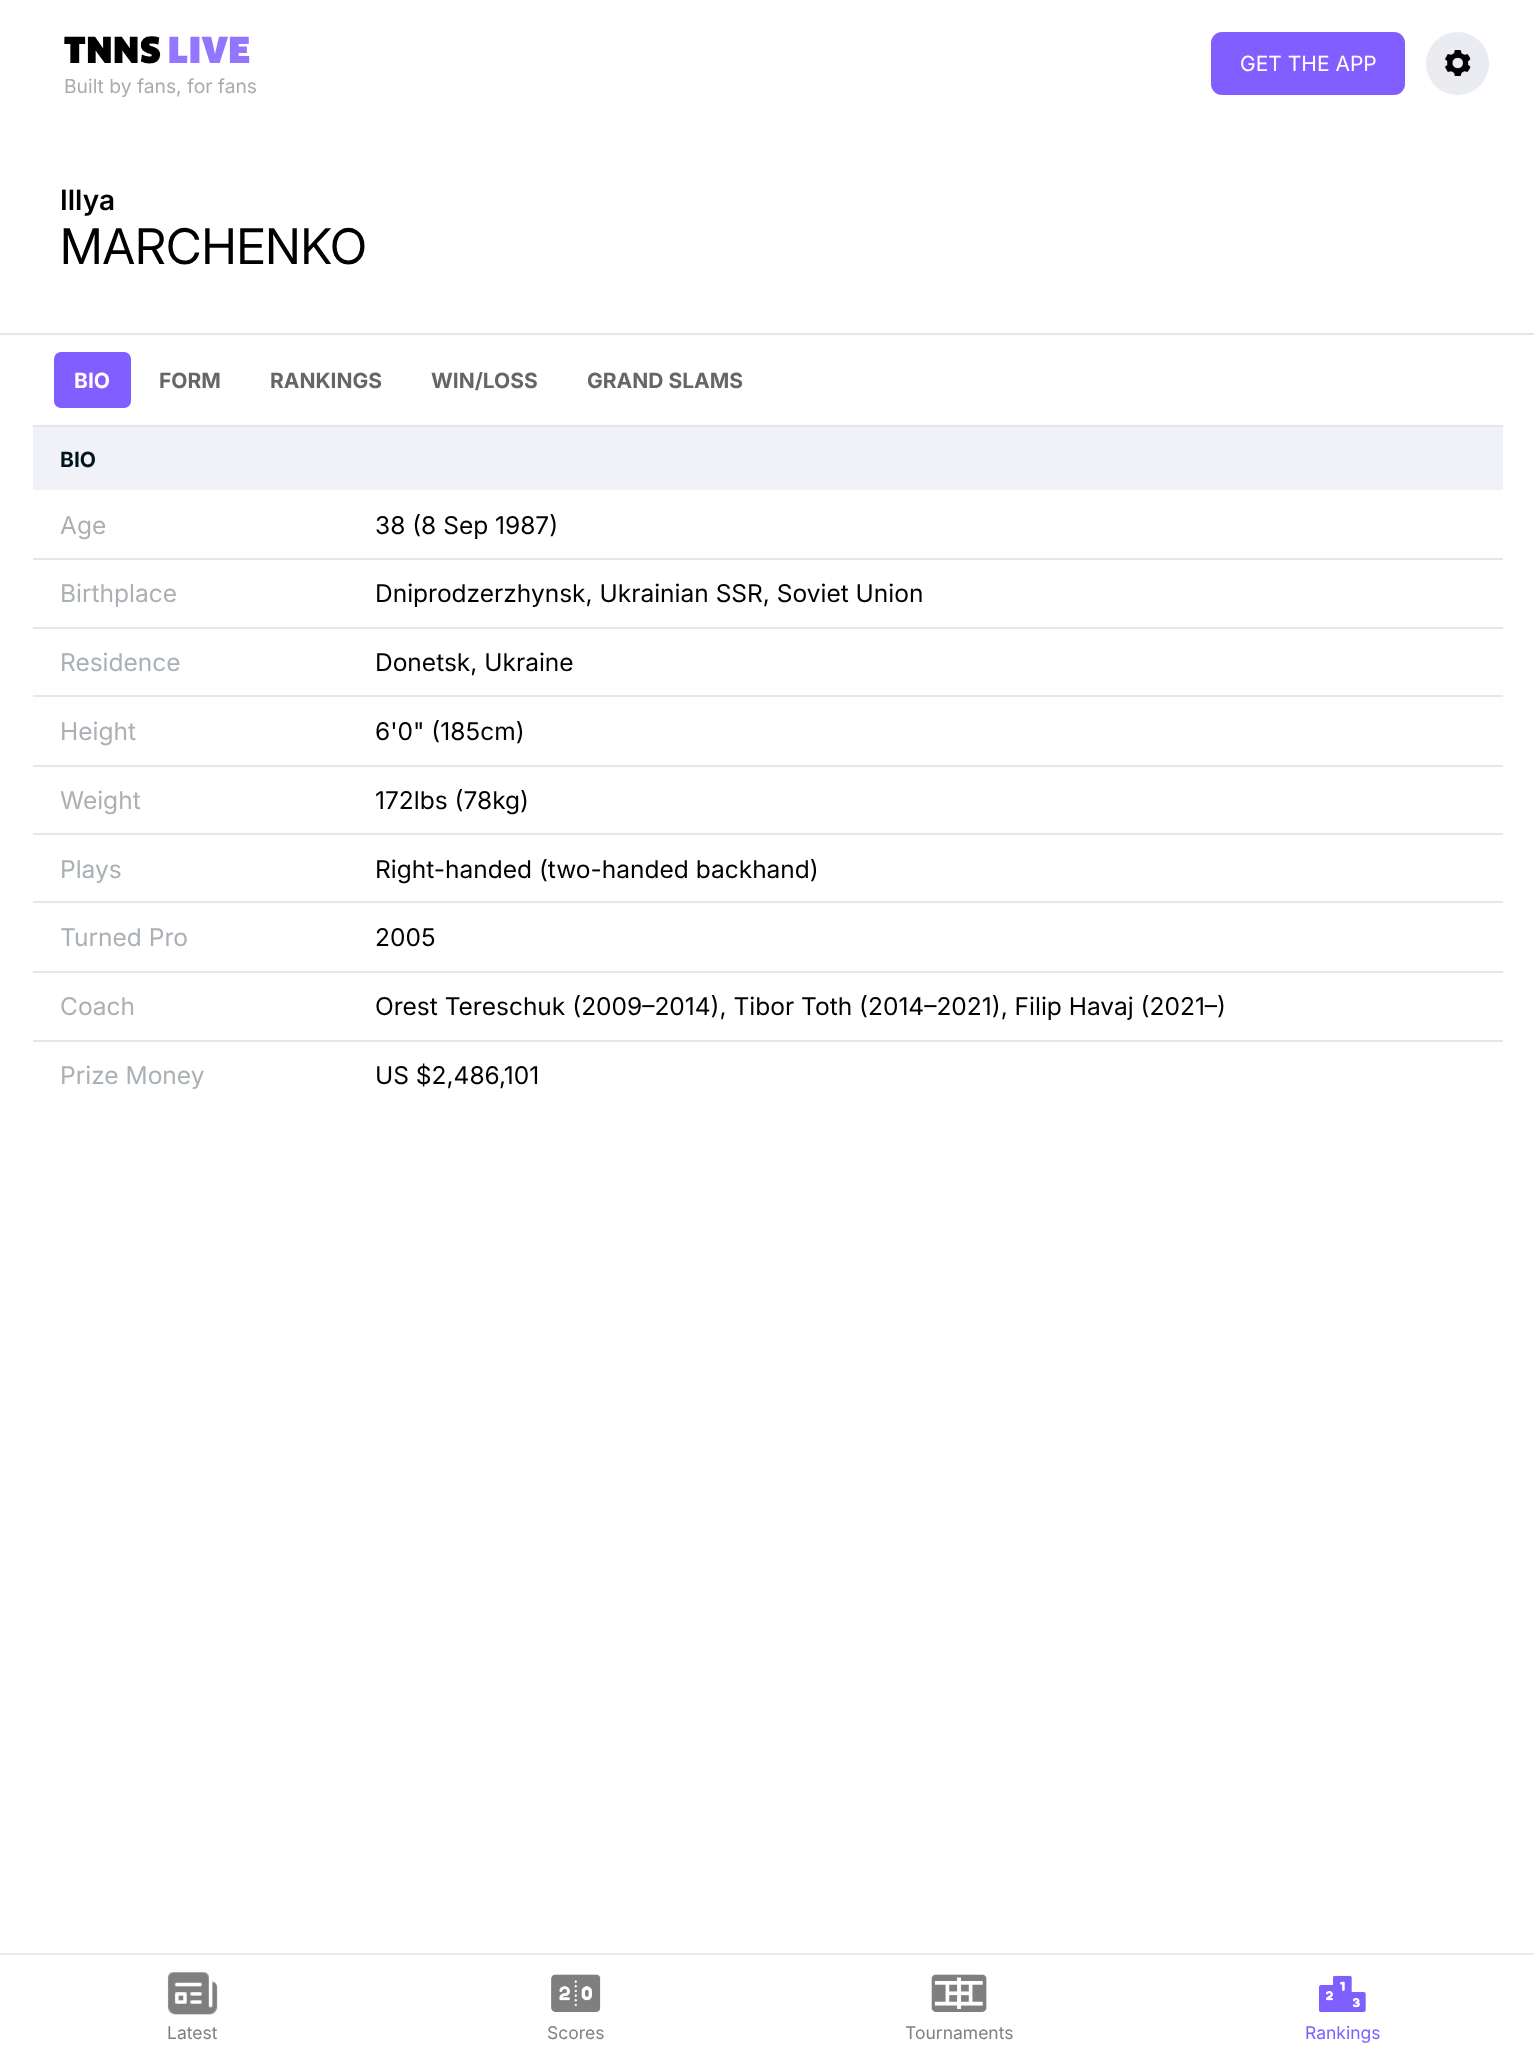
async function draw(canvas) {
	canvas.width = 1534;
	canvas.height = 2062;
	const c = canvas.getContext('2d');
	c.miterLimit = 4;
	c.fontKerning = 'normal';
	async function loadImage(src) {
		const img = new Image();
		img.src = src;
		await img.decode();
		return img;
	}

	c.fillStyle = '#fff';
	c.fillRect(0, 0, 1534, 2062);
	c.letterSpacing = '1px';
	c.font = '900 35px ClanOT';
	c.fillStyle = '#000';
	c.fillText('TNNS', 64, 63);
	c.fillStyle = '#9376ff';
	c.fillText('LIVE', 168, 63);
	c.letterSpacing = '0px';
	c.font = '19.25px "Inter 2"';
	c.fillStyle = '#ababab';
	c.fillText('Built by fans, for fans', 64, 93);
	c.fillStyle = '#805eff';
	c.beginPath();
	c.roundRect(1211, 32, 194, 63, 11);
	c.fill();
	c.font = '21px "Inter 2"';
	c.fillStyle = '#fff';
	c.fillText('GET THE APP', 1240, 71);
	c.fillStyle = '#eaecf2';
	c.beginPath();
	c.arc(1457.5, 63.5, 31.5, 0, 2 * Math.PI);
	c.fill();
	c.drawImage(await loadImage('img1.png'), 1445, 50, 26, 26);
	c.fillStyle = '#e6e6e6';
	c.fillRect(0, 333, 1534, 2);
	c.font = '600 28px Inter';
	c.fillStyle = '#000';
	c.fillText('Illya', 60, 210);
	c.font = '49px Inter';
	c.fillText('MARCHENKO', 60, 264);
	c.fillStyle = '#e6e6e6';
	c.fillRect(33, 425, 1470, 2);
	c.fillStyle = '#805eff';
	c.beginPath();
	c.roundRect(54, 352, 77, 56, 7);
	c.fill();
	c.font = 'bold 21px Inter';
	c.fillStyle = '#fff';
	c.fillText('BIO', 74, 388);
	c.fillStyle = '#666';
	for (const [text, x, y] of [
		['FORM', 159, 388],
		['RANKINGS', 270, 388],
		['WIN/LOSS', 431, 388],
		['GRAND SLAMS', 587, 388],
	]) {
		c.fillText(text, x, y);
	}
	c.fillStyle = '#f0f2f8';
	c.fillRect(33, 427, 1470, 63);
	c.fillStyle = '#00131e';
	c.fillText('BIO', 60, 467);
	c.font = '24.5px "Inter 2"';
	c.fillStyle = '#aab0b4';
	c.fillText('Age', 60, 534);
	c.fillStyle = '#000';
	c.fillText('38 (8 Sep 1987)', 375, 534);
	c.fillStyle = '#e6e6e6';
	c.fillRect(33, 558, 1470, 2);
	c.fillStyle = '#aab0b4';
	c.fillText('Birthplace', 60, 602);
	c.fillStyle = '#000';
	c.fillText('Dniprodzerzhynsk, Ukrainian SSR, Soviet Union', 375, 602);
	c.fillStyle = '#e6e6e6';
	c.fillRect(33, 627, 1470, 2);
	c.fillStyle = '#aab0b4';
	c.fillText('Residence', 60, 671);
	c.fillStyle = '#000';
	c.fillText('Donetsk, Ukraine', 375, 671);
	c.fillStyle = '#e6e6e6';
	c.fillRect(33, 695, 1470, 2);
	c.fillStyle = '#aab0b4';
	c.fillText('Height', 60, 740);
	c.fillStyle = '#000';
	c.fillText('6\'0" (185cm)', 375, 740);
	c.fillStyle = '#e6e6e6';
	c.fillRect(33, 765, 1470, 2);
	c.fillStyle = '#aab0b4';
	c.fillText('Weight', 60, 809);
	c.fillStyle = '#000';
	c.fillText('172lbs (78kg)', 375, 809);
	c.fillStyle = '#e6e6e6';
	c.fillRect(33, 833, 1470, 2);
	c.fillStyle = '#aab0b4';
	c.fillText('Plays', 60, 878);
	c.fillStyle = '#000';
	c.fillText('Right-handed (two-handed backhand)', 375, 878);
	c.fillStyle = '#e6e6e6';
	c.fillRect(33, 901, 1470, 2);
	c.fillStyle = '#aab0b4';
	c.fillText('Turned Pro', 60, 946);
	c.fillStyle = '#000';
	c.fillText('2005', 375, 946);
	c.fillStyle = '#e6e6e6';
	c.fillRect(33, 971, 1470, 2);
	c.fillStyle = '#aab0b4';
	c.fillText('Coach', 60, 1015);
	c.fillStyle = '#000';
	c.fillText('Orest Tereschuk (2009–2014), Tibor Toth (2014–2021), Filip Havaj (2021–)', 375, 1015);
	c.fillStyle = '#e6e6e6';
	c.fillRect(33, 1040, 1470, 2);
	c.fillStyle = '#aab0b4';
	c.fillText('Prize Money', 60, 1084);
	c.fillStyle = '#000';
	c.fillText('US $2,486,101', 375, 1084);
	c.fillStyle = '#eaecf2';
	c.fillRect(0, 1953, 1534, 2);
	c.drawImage(await loadImage('img2.png'), 167, 1972, 51, 43);
	c.font = '17.5px "Inter 2"';
	c.fillStyle = '#808080';
	c.fillText('Latest', 167, 2039);
	c.drawImage(await loadImage('img3.png'), 551, 1974, 50, 38);
	c.fillText('Scores', 547, 2039);
	c.drawImage(await loadImage('img4.png'), 931, 1974, 56, 38);
	c.fillText('Tournaments', 905, 2039);
	c.drawImage(await loadImage('img5.png'), 1319, 1975, 47, 37);
	c.fillStyle = '#805eff';
	c.fillText('Rankings', 1305, 2039);
}

draw(document.querySelector('canvas'));
